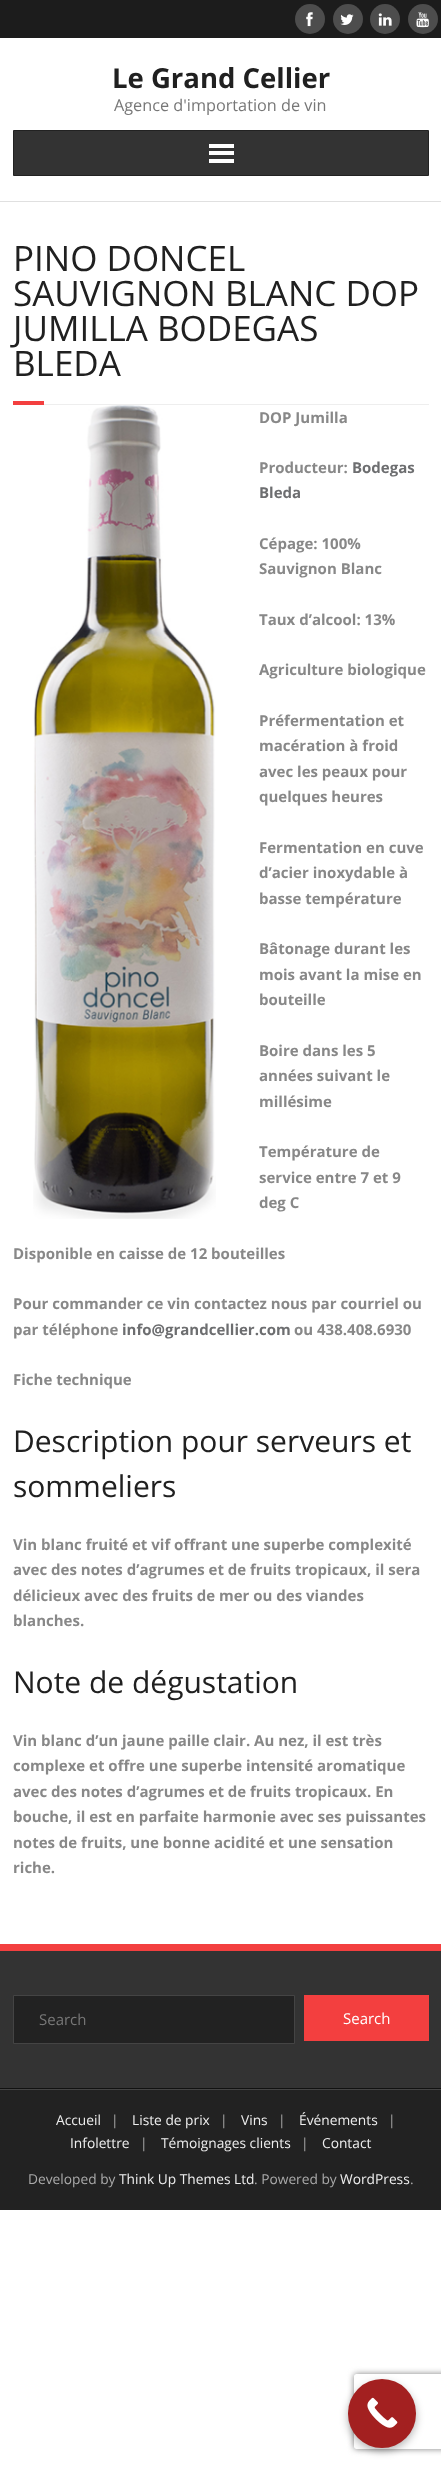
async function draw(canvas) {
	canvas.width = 441;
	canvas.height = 2466;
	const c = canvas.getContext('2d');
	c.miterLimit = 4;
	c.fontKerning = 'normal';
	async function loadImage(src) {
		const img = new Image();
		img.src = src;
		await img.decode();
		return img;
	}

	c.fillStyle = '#fff';
	c.fillRect(0, 0, 441, 2466);
	c.fillStyle = '#1c1c1c';
	c.fillRect(0, 0, 441, 38);
	c.fillStyle = '#4d4d4d';
	c.beginPath();
	c.arc(310, 19, 15, 0, 2 * Math.PI);
	c.fill();
	c.drawImage(await loadImage('img1.png'), 306, 12, 7, 15);
	c.beginPath();
	c.arc(348, 19, 15, 0, 2 * Math.PI);
	c.fill();
	c.drawImage(await loadImage('img2.png'), 340, 14, 14, 11);
	c.beginPath();
	c.arc(385, 19, 15, 0, 2 * Math.PI);
	c.fill();
	c.drawImage(await loadImage('img3.png'), 378, 13, 14, 13);
	c.beginPath();
	c.arc(423, 19, 15, 0, 2 * Math.PI);
	c.fill();
	c.drawImage(await loadImage('img4.png'), 416, 12, 13, 16);
	c.fillStyle = '#e0e0e0';
	c.fillRect(0, 201, 441, 1);
	c.font = 'bold 27.5px Open Sans';
	c.fillStyle = '#202020';
	c.fillText('Le Grand Cellier', 112, 88);
	c.font = '16.25px Open Sans';
	c.fillStyle = '#777';
	c.fillText('Agence d\'importation de vin', 114, 111);
	c.fillStyle = '#333';
	c.beginPath();
	c.rect(13.5, 130.5, 415, 45);
	c.fill();
	c.strokeStyle = '#222';
	c.stroke();
	for (const [x, y, w, h, color] of [
		[209, 144, 25, 4, '#fff'],
		[209, 151, 25, 4, '#fff'],
		[209, 159, 25, 4, '#fff'],
	]) {
		c.fillStyle = color;
		c.fillRect(x, y, w, h);
	}
	c.font = '35px Open Sans';
	c.fillStyle = '#202020';
	for (const [text, x, y] of [
		['PINO DONCEL', 13, 271],
		['SAUVIGNON BLANC DOP', 13, 306],
		['JUMILLA BODEGAS', 13, 341],
		['BLEDA', 13, 376],
	]) {
		c.fillText(text, x, y);
	}
	c.fillStyle = '#f33f3f';
	c.fillRect(13, 401, 31, 4);
	c.fillStyle = '#eee';
	c.fillRect(44, 404, 385, 1);
	c.drawImage(await loadImage('img5.png'), 33, 405, 183, 814);
	c.font = 'bold 15px Open Sans';
	c.fillStyle = '#888';
	c.fillText('DOP Jumilla', 259, 423);
	c.fillText('Producteur:', 259, 473);
	c.fillStyle = '#6d6e70';
	c.fillText('Bodegas', 352, 473);
	c.fillText('Bleda', 259, 498);
	c.fillStyle = '#888';
	for (const [text, x, y] of [
		['Cépage: 100%', 259, 549],
		['Sauvignon Blanc', 259, 574],
		['Taux d’alcool: 13%', 259, 625],
		['Agriculture biologique', 259, 675],
		['Préfermentation et', 259, 726],
		['macération à froid', 259, 751],
		['avec les peaux pour', 259, 777],
		['quelques heures', 259, 802],
		['Fermentation en cuve', 259, 853],
		['d’acier inoxydable à', 259, 878],
		['basse température', 259, 904],
		['Bâtonage durant les', 259, 954],
		['mois avant la mise en', 259, 980],
		['bouteille', 259, 1005],
		['Boire dans les 5', 259, 1056],
		['années suivant le', 259, 1081],
		['millésime', 259, 1107],
		['Température de', 259, 1157],
		['service entre 7 et 9', 259, 1183],
		['deg C', 259, 1208],
		['Disponible en caisse de 12 bouteilles', 13, 1259],
		['Pour commander ce vin contactez nous par courriel ou', 13, 1309],
		['par téléphone', 13, 1335],
	]) {
		c.fillText(text, x, y);
	}
	c.fillStyle = '#6d6e70';
	c.fillText('info@grandcellier.com', 122, 1335);
	c.fillStyle = '#888';
	c.fillText('ou 438.408.6930', 294, 1335);
	c.fillText('Fiche technique', 13, 1385);
	c.font = '30px Open Sans';
	c.fillStyle = '#202020';
	c.fillText('Description pour serveurs et', 13, 1452);
	c.fillText('sommeliers', 13, 1497);
	c.font = 'bold 15px Open Sans';
	c.fillStyle = '#888';
	for (const [text, x, y] of [
		['Vin blanc fruité et vif offrant une superbe complexité', 13, 1550],
		['avec des notes d’agrumes et de fruits tropicaux, il sera', 13, 1575],
		['délicieux avec des fruits de mer ou des viandes', 13, 1601],
		['blanches.', 13, 1626],
	]) {
		c.fillText(text, x, y);
	}
	c.font = '30px Open Sans';
	c.fillStyle = '#202020';
	c.fillText('Note de dégustation', 13, 1693);
	c.font = 'bold 15px Open Sans';
	c.fillStyle = '#888';
	for (const [text, x, y] of [
		['Vin blanc d’un jaune paille clair. Au nez, il est très', 13, 1746],
		['complexe et offre une superbe intensité aromatique', 13, 1771],
		['avec des notes d’agrumes et de fruits tropicaux. En', 13, 1797],
		['bouche, il est en parfaite harmonie avec ses puissantes', 13, 1822],
		['notes de fruits, une bonne acidité et une sensation', 13, 1848],
		['riche.', 13, 1873],
	]) {
		c.fillText(text, x, y);
	}
	for (const [x, y, w, h, color] of [
		[0, 1951, 441, 137, '#333'],
		[0, 1944, 441, 7, '#f33f3f'],
		[0, 2088, 441, 1, '#111'],
	]) {
		c.fillStyle = color;
		c.fillRect(x, y, w, h);
	}
	c.fillStyle = '#222';
	c.beginPath();
	c.rect(13.5, 1995.5, 281, 48);
	c.fill();
	c.strokeStyle = '#444';
	c.stroke();
	c.font = '15px Open Sans';
	c.fillStyle = '#777';
	c.fillText('Search', 39, 2025);
	c.fillStyle = '#f33f3f';
	c.fillRect(304, 1995, 125, 46);
	c.fillStyle = '#fff';
	c.fillText('Search', 343, 2024);
	c.fillStyle = '#222';
	c.fillRect(0, 2090, 441, 120);
	c.fillStyle = '#444';
	c.fillRect(0, 2089, 441, 1);
	c.font = '13.75px Open Sans';
	c.fillStyle = '#eee';
	c.fillText('Accueil', 56, 2125);
	c.fillStyle = '#aaa';
	c.fillText('|', 111, 2125);
	c.fillStyle = '#eee';
	c.fillText('Liste de prix', 132, 2125);
	c.fillStyle = '#aaa';
	c.fillText('|', 220, 2125);
	c.fillStyle = '#eee';
	c.fillText('Vins', 241, 2125);
	c.fillStyle = '#aaa';
	c.fillText('|', 278, 2125);
	c.fillStyle = '#eee';
	c.fillText('Événements', 299, 2125);
	c.fillStyle = '#aaa';
	c.fillText('|', 388, 2125);
	c.fillStyle = '#eee';
	c.fillText('Infolettre', 70, 2148);
	c.fillStyle = '#aaa';
	c.fillText('|', 140, 2148);
	c.fillStyle = '#eee';
	c.fillText('Témoignages clients', 161, 2148);
	c.fillStyle = '#aaa';
	c.fillText('|', 301, 2148);
	c.fillStyle = '#eee';
	c.fillText('Contact', 322, 2148);
	c.fillStyle = '#aaa';
	c.fillText('Developed by', 28, 2184);
	c.fillStyle = '#eee';
	c.fillText('Think Up Themes Ltd', 119, 2184);
	c.fillStyle = '#aaa';
	c.fillText('. Powered by', 254, 2184);
	c.fillStyle = '#eee';
	c.fillText('WordPress', 340, 2184);
	c.fillStyle = '#aaa';
	c.fillText('.', 410, 2184);
	c.save();
	c.beginPath();
	c.moveTo(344, 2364);
	c.lineTo(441, 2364);
	c.lineTo(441, 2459);
	c.lineTo(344, 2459);
	c.closePath();
	c.moveTo(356.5, 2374);
	c.lineTo(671.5, 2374);
	c.bezierCurveTo(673, 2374, 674, 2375, 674, 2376.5);
	c.lineTo(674, 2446.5);
	c.bezierCurveTo(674, 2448, 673, 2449, 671.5, 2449);
	c.lineTo(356.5, 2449);
	c.bezierCurveTo(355, 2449, 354, 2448, 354, 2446.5);
	c.lineTo(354, 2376.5);
	c.bezierCurveTo(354, 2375, 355, 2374, 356.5, 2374);
	c.closePath();
	c.clip('evenodd');
	c.fillStyle = '#808080';
	c.filter = 'blur(3px)';
	c.beginPath();
	c.roundRect(354, 2374, 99, 75, 2.5);
	c.fill();
	c.filter = 'none';
	c.restore();
	c.fillStyle = '#0000004d';
	c.filter = 'blur(4px)';
	c.beginPath();
	c.roundRect(348, 2383, 68, 68, 34);
	c.fill();
	c.filter = 'none';
	c.fillStyle = '#a32020';
	c.beginPath();
	c.roundRect(348, 2379, 68, 69, 34);
	c.fill();
	c.drawImage(await loadImage('img6.png'), 367, 2397, 31, 31);
}

draw(document.querySelector('canvas'));
